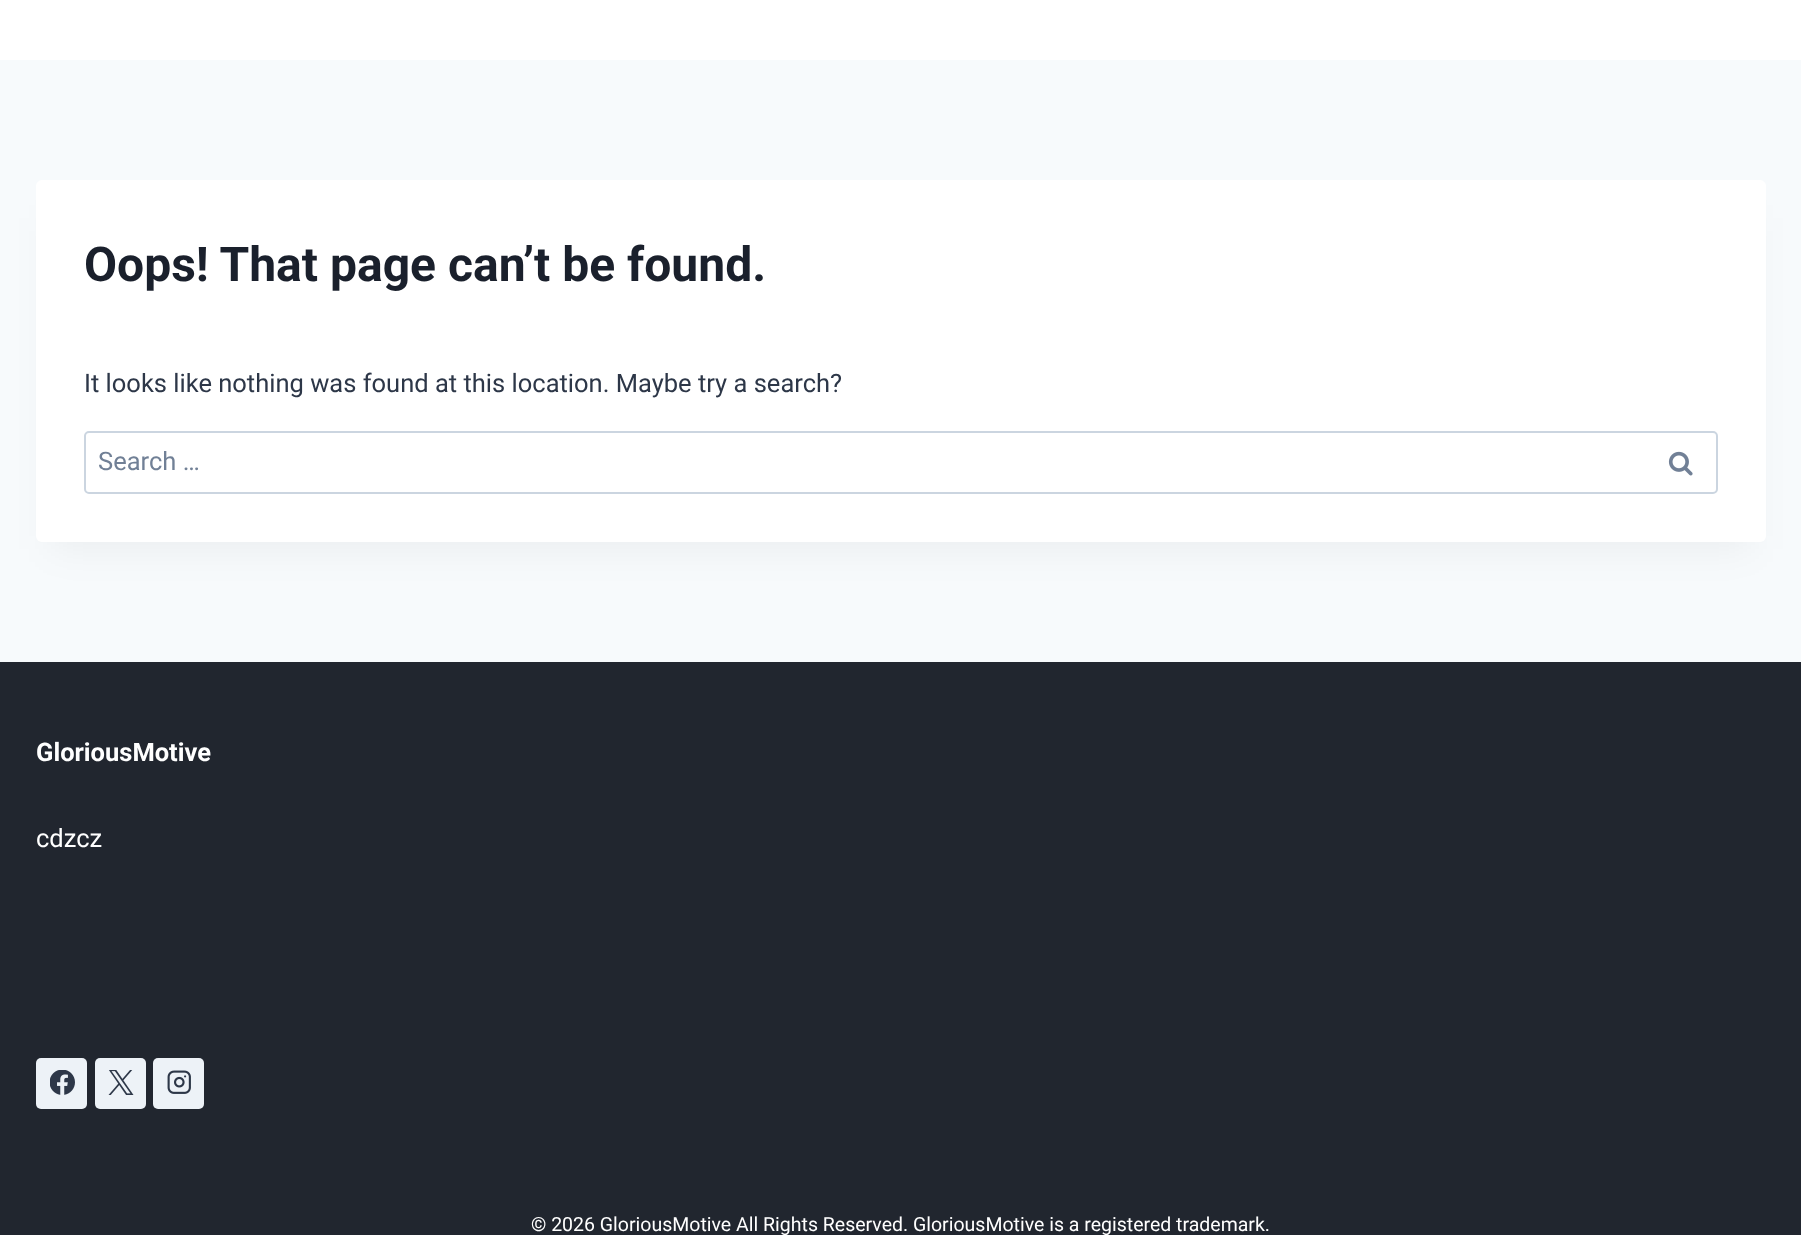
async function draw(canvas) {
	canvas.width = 1801;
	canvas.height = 1235;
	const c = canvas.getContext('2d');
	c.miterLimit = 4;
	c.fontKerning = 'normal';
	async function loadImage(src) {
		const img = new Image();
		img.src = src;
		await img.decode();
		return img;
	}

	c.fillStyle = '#f7fafc';
	c.fillRect(0, 0, 1801, 1235);
	c.fillStyle = '#fff';
	c.fillRect(0, 0, 1801, 60);
	c.fillStyle = '#0000000d';
	c.filter = 'blur(19px)';
	c.beginPath();
	c.rect(51, 218, 1700, 331);
	c.fill();
	c.filter = 'none';
	c.fillStyle = '#fff';
	c.beginPath();
	c.roundRect(36, 180, 1730, 362, 6);
	c.fill();
	c.font = 'bold 48px Roboto';
	c.fillStyle = '#1a202c';
	c.fillText('Oops! That page can’t be found.', 84, 281);
	c.font = '25.5px Roboto';
	c.fillStyle = '#2d3748';
	c.fillText('It looks like nothing was found at this location. Maybe try a search?', 84, 392);
	c.beginPath();
	c.roundRect(85, 432, 1632, 61, 4);
	c.strokeStyle = '#cbd5e0';
	c.lineWidth = 2;
	c.stroke();
	c.fillStyle = '#718096';
	c.fillText('Search …', 98, 470);
	c.drawImage(await loadImage('img1.png'), 1668, 451, 25, 25);
	c.fillStyle = '#21262f';
	c.fillRect(0, 662, 1801, 573);
	c.font = 'bold 25.5px Roboto';
	c.fillStyle = '#fff';
	c.fillText('GloriousMotive', 36, 761);
	c.font = '25.5px Roboto';
	c.fillText('cdzcz', 36, 847);
	c.fillStyle = '#edf2f7';
	c.beginPath();
	c.roundRect(36, 1058, 51, 51, 5);
	c.fill();
	c.drawImage(await loadImage('img2.png'), 50, 1070, 25, 25);
	c.beginPath();
	c.roundRect(95, 1058, 51, 51, 5);
	c.fill();
	c.drawImage(await loadImage('img3.png'), 108, 1070, 26, 25);
	c.beginPath();
	c.roundRect(153, 1058, 51, 51, 5);
	c.fill();
	c.drawImage(await loadImage('img4.png'), 167, 1070, 24, 24);
	c.font = '19.5px Roboto';
	c.fillStyle = '#fff';
	c.fillText('© 2026 GloriousMotive All Rights Reserved. GloriousMotive is a registered trademark.', 531, 1231);
}

draw(document.querySelector('canvas'));
